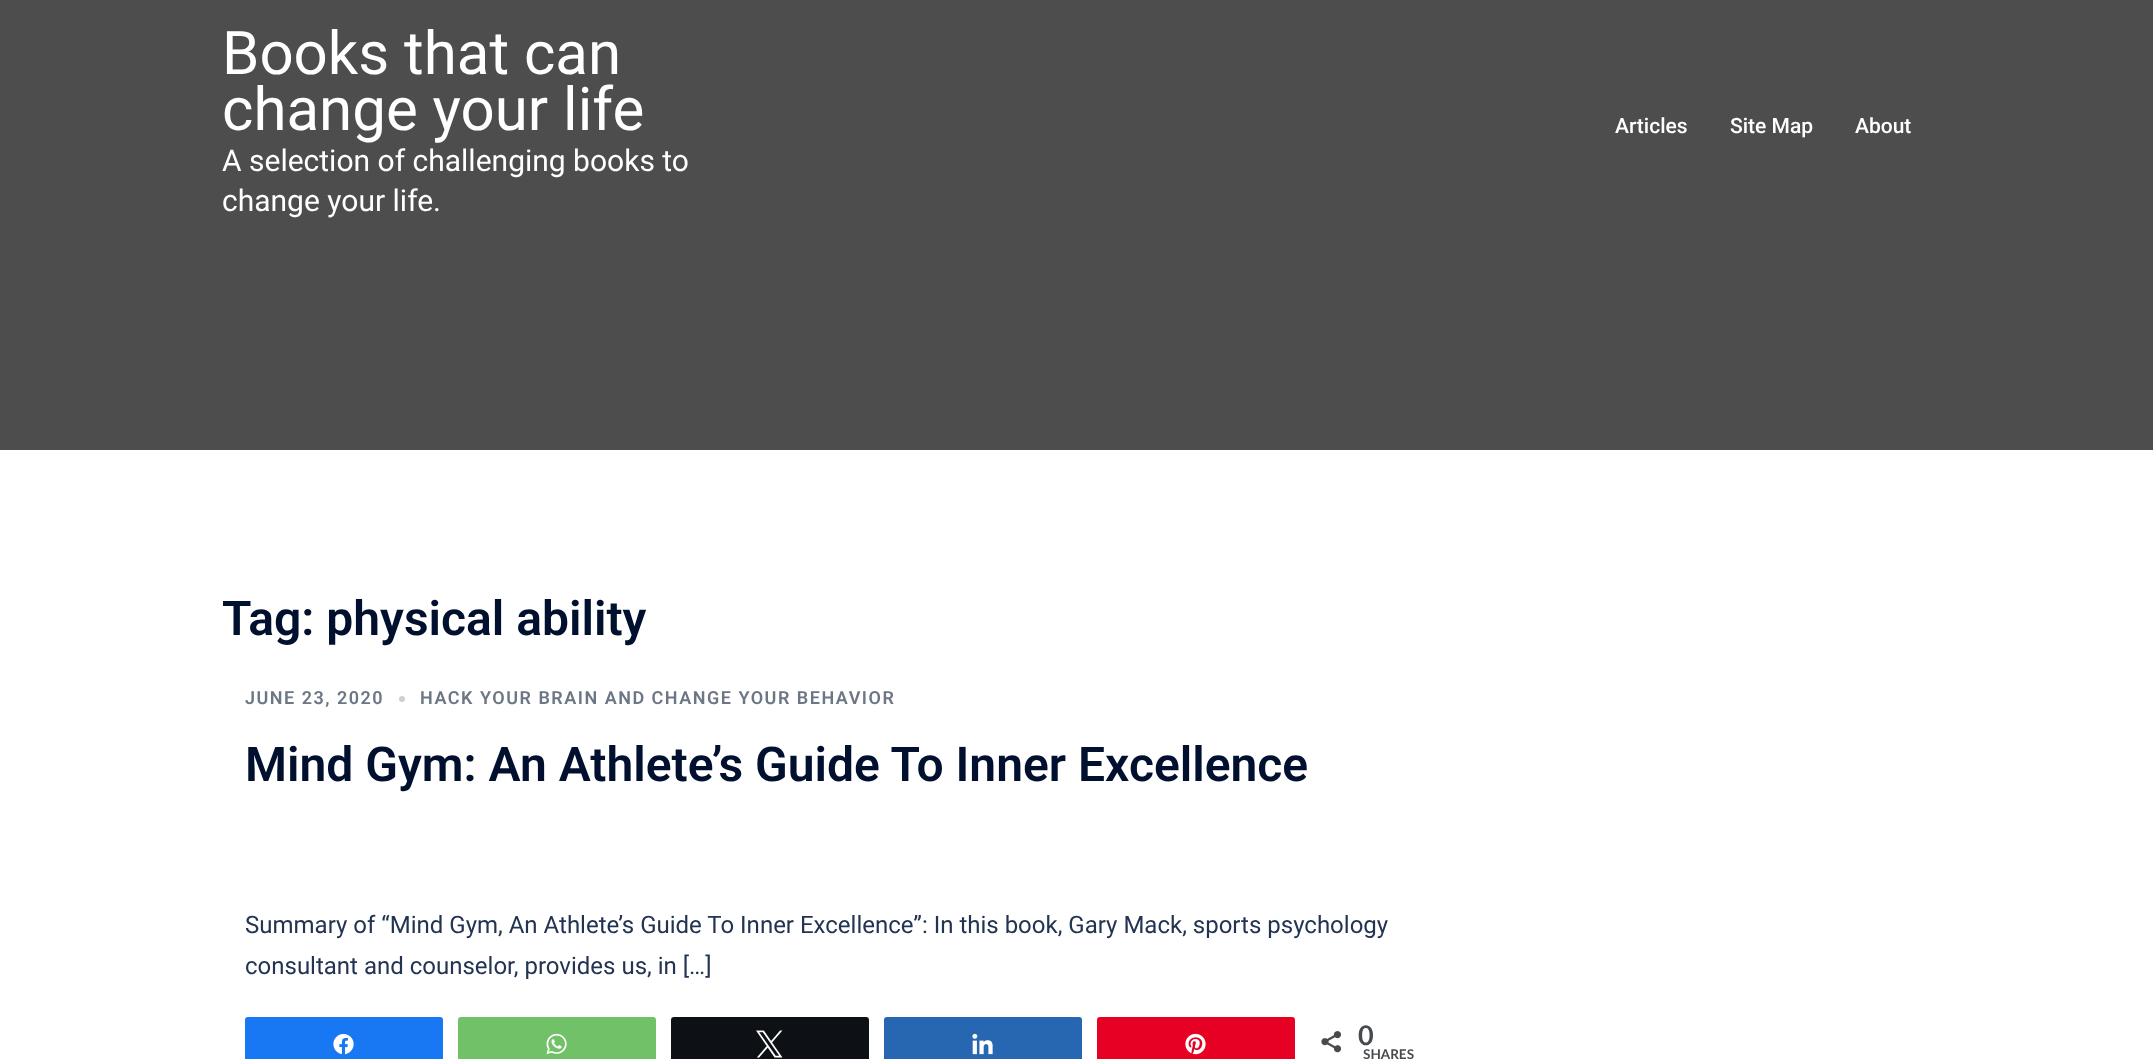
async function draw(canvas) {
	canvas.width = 2153;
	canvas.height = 1059;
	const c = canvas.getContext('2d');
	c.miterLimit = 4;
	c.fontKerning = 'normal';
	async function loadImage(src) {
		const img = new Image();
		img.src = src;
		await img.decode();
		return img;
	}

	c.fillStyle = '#fff';
	c.fillRect(0, 0, 2153, 1059);
	c.fillStyle = '#4d4d4d';
	c.fillRect(0, 0, 2153, 450);
	c.font = '60px Roboto';
	c.fillStyle = '#fff';
	c.fillText('Books that can', 222, 74);
	c.fillText('change your life', 222, 130);
	c.font = '30px Roboto';
	c.fillText('A selection of challenging books to', 222, 171);
	c.fillText('change your life.', 222, 211);
	c.font = '500 21px Roboto';
	for (const [text, x, y] of [
		['Articles', 1615, 133],
		['Site Map', 1730, 133],
		['About', 1855, 133],
	]) {
		c.fillText(text, x, y);
	}
	c.font = '600 48px Roboto';
	c.fillStyle = '#00102e';
	c.fillText('Tag: physical ability', 222, 635);
	c.letterSpacing = '1.5px';
	c.font = '600 18px Roboto';
	c.fillStyle = '#6d7685';
	c.fillText('JUNE 23, 2020', 245, 704);
	c.fillStyle = '#cccfd5';
	c.beginPath();
	c.arc(402, 699, 3, 0, 2 * Math.PI);
	c.fill();
	c.fillStyle = '#6d7685';
	c.fillText('HACK YOUR BRAIN AND CHANGE YOUR BEHAVIOR', 420, 704);
	c.letterSpacing = '0px';
	c.font = '600 48px Roboto';
	c.fillStyle = '#00102e';
	c.fillText('Mind Gym: An Athlete’s Guide To Inner Excellence', 245, 781);
	c.font = '24px Roboto';
	c.fillStyle = '#233452';
	c.fillText('Summary of “Mind Gym, An Athlete’s Guide To Inner Excellence”: In this book, Gary Mack, sports psychology', 245, 933);
	c.fillText('consultant and counselor, provides us, in […]', 245, 974);
	c.fillStyle = '#1877f2';
	c.beginPath();
	c.roundRect(246, 1018, 196, 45, 2);
	c.fill();
	c.strokeStyle = '#1877f2';
	c.lineWidth = 2;
	c.stroke();
	c.drawImage(await loadImage('img1.png'), 333, 1034, 21, 21);
	c.fillStyle = '#71c169';
	c.beginPath();
	c.roundRect(459, 1018, 196, 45, 2);
	c.fill();
	c.strokeStyle = '#71c169';
	c.stroke();
	c.drawImage(await loadImage('img2.png'), 546, 1033, 21, 22);
	c.fillStyle = '#0d1014';
	c.beginPath();
	c.roundRect(672, 1018, 196, 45, 2);
	c.fill();
	c.strokeStyle = '#0d1014';
	c.stroke();
	c.drawImage(await loadImage('img3.png'), 756, 1030, 27, 28);
	c.fillStyle = '#2767b1';
	c.beginPath();
	c.roundRect(885, 1018, 196, 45, 2);
	c.fill();
	c.strokeStyle = '#2767b1';
	c.stroke();
	c.drawImage(await loadImage('img4.png'), 972, 1033, 21, 22);
	c.fillStyle = '#e60023';
	c.beginPath();
	c.roundRect(1098, 1018, 196, 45, 2);
	c.fill();
	c.strokeStyle = '#e60023';
	c.stroke();
	c.drawImage(await loadImage('img5.png'), 1185, 1033, 21, 22);
	c.drawImage(await loadImage('img6.png'), 1321, 1031, 21, 22);
	c.font = 'bold 27px Lato';
	c.fillStyle = '#474b4d';
	c.fillText('0', 1358, 1045);
	c.font = 'bold 13.5px Lato';
	c.fillText('SHARES', 1363, 1059);
}

draw(document.querySelector('canvas'));
